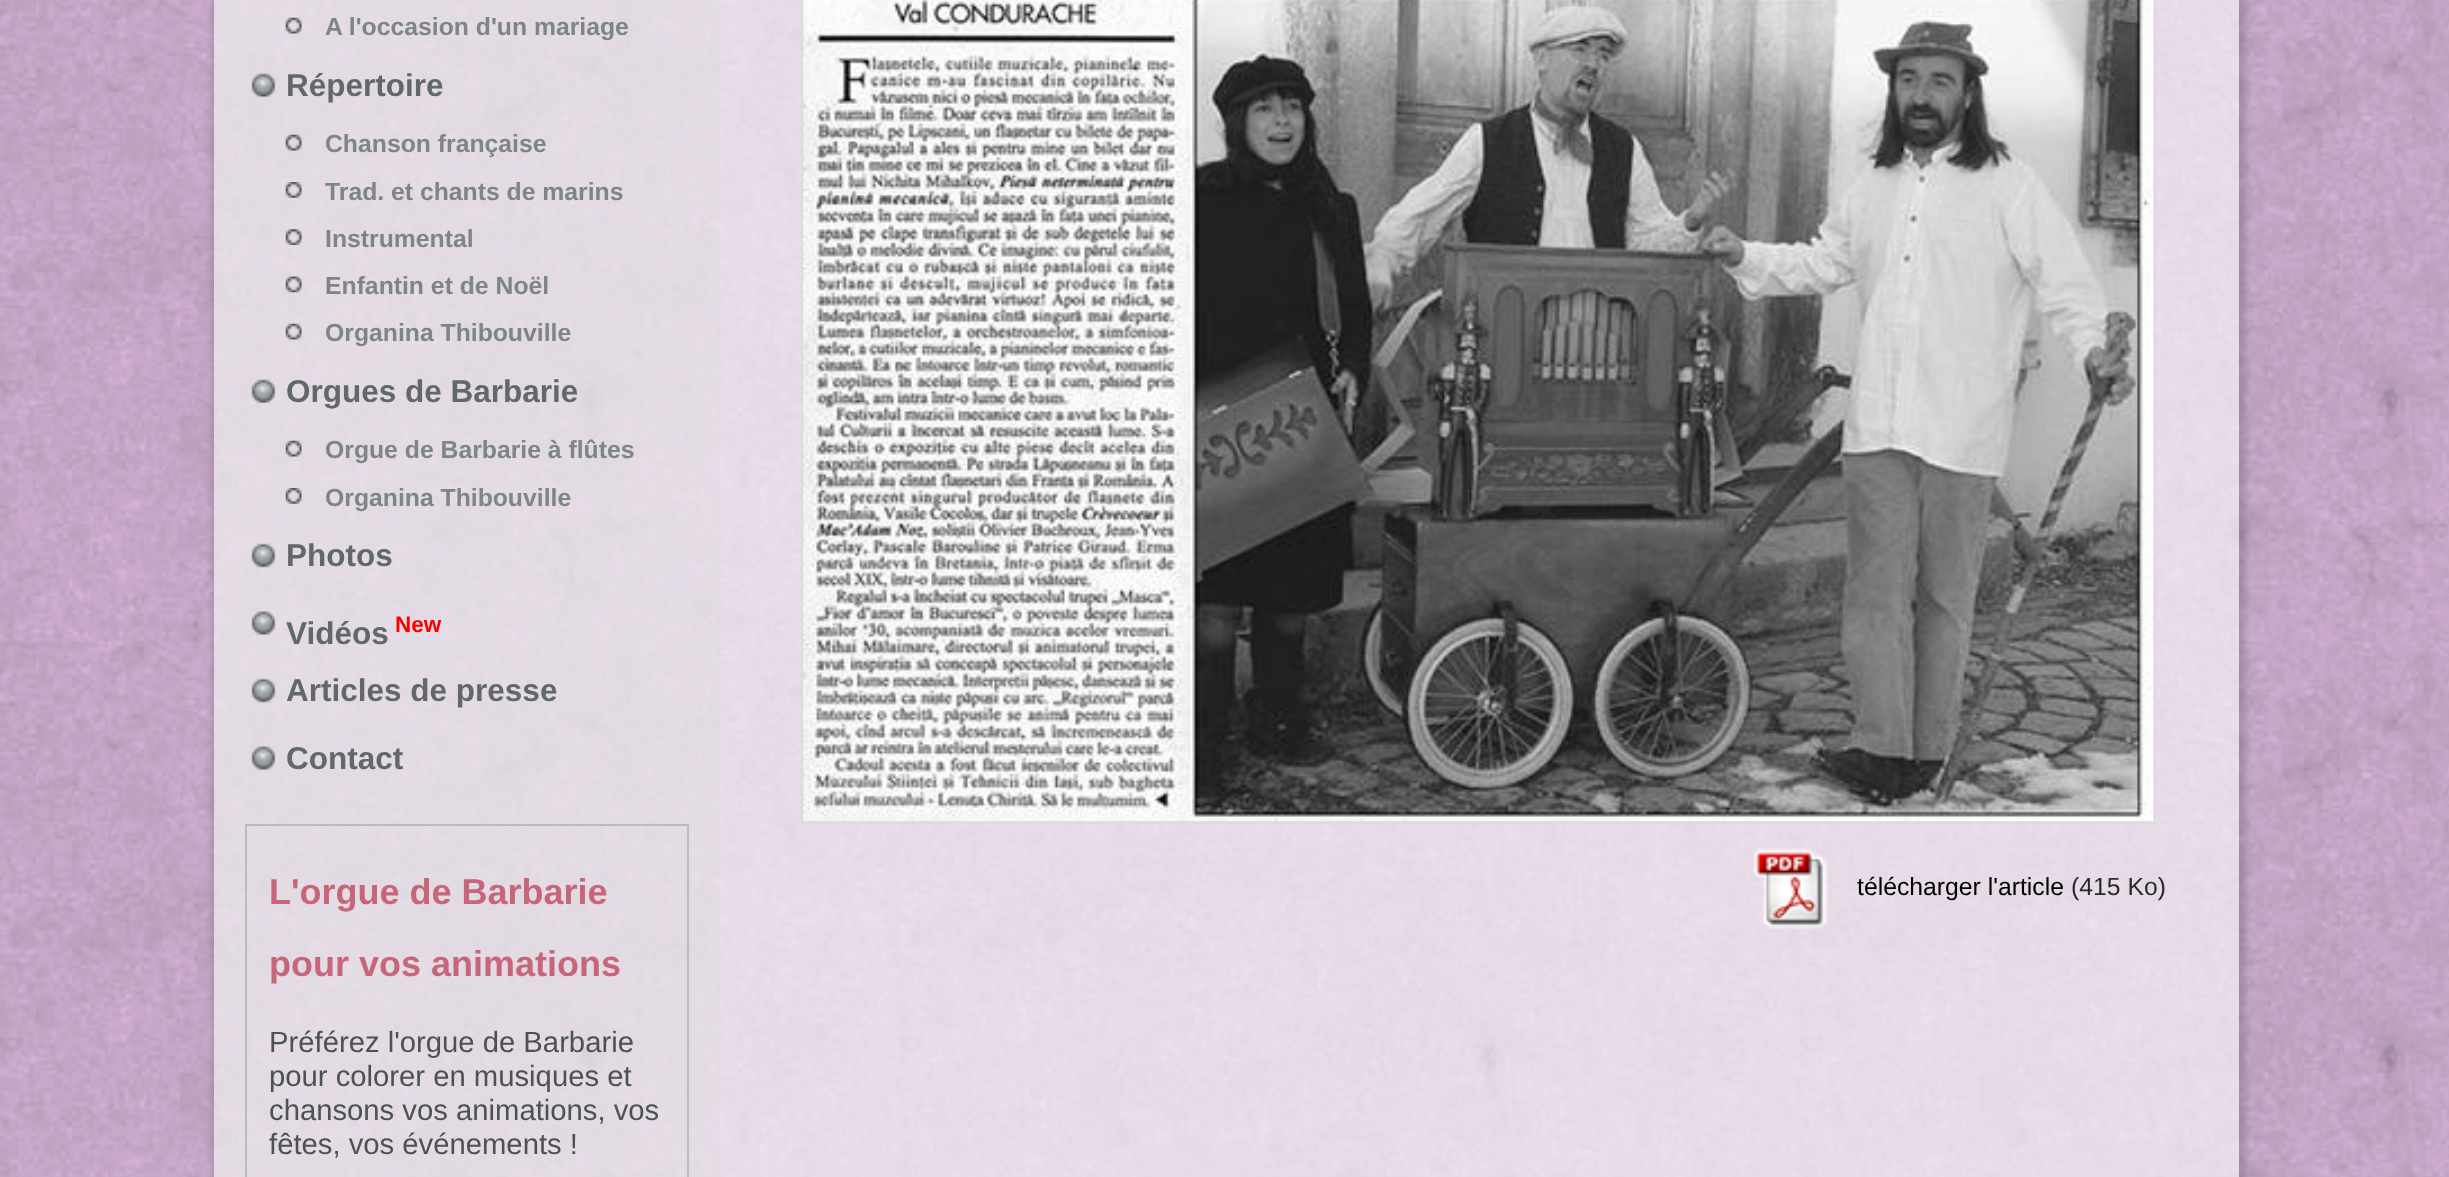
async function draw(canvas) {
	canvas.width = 2449;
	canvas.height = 1177;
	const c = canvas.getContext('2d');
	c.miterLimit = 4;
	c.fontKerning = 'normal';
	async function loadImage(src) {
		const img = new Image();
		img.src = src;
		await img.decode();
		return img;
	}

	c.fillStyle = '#fff';
	c.fillRect(0, 0, 2449, 1177);
	c.drawImage(await loadImage('img1.png'), 0, 0, 2449, 1177);
	c.save();
	c.beginPath();
	c.moveTo(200, 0);
	c.lineTo(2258, 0);
	c.lineTo(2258, 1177);
	c.lineTo(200, 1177);
	c.closePath();
	c.moveTo(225, -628);
	c.lineTo(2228, -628);
	c.bezierCurveTo(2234, -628, 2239, -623, 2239, -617);
	c.lineTo(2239, 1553);
	c.bezierCurveTo(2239, 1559, 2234, 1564, 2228, 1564);
	c.lineTo(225, 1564);
	c.bezierCurveTo(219, 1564, 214, 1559, 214, 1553);
	c.lineTo(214, -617);
	c.bezierCurveTo(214, -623, 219, -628, 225, -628);
	c.closePath();
	c.clip('evenodd');
	c.fillStyle = '#00000026';
	c.filter = 'blur(3.5px)';
	c.beginPath();
	c.roundRect(212, -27, 2034, 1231, 16);
	c.fill();
	c.filter = 'none';
	c.restore();
	c.fillStyle = '#ffffff99';
	c.fillRect(214, 0, 2025, 1177);
	c.fillStyle = '#dadcdd4d';
	c.fillRect(214, 0, 506, 1177);
	c.drawImage(await loadImage('img2.png'), 285, 17, 17, 17);
	c.font = 'bold 24.75px Liberation Sans';
	c.fillStyle = '#7d8587';
	c.fillText('A l\'occasion d\'un mariage', 325, 35);
	c.drawImage(await loadImage('img3.png'), 251, 73, 25, 25);
	c.font = 'bold 31.5px Liberation Sans';
	c.fillStyle = '#62686a';
	c.fillText('Répertoire', 286, 96);
	c.drawImage(await loadImage('img4.png'), 285, 134, 17, 17);
	c.font = 'bold 24.75px Liberation Sans';
	c.fillStyle = '#7d8587';
	c.fillText('Chanson française', 325, 152);
	c.drawImage(await loadImage('img5.png'), 285, 182, 17, 16);
	c.fillText('Trad. et chants de marins', 325, 200);
	c.drawImage(await loadImage('img6.png'), 285, 229, 17, 16);
	c.fillText('Instrumental', 325, 247);
	c.drawImage(await loadImage('img7.png'), 285, 276, 17, 17);
	c.fillText('Enfantin et de Noël', 325, 294);
	c.drawImage(await loadImage('img8.png'), 285, 323, 17, 17);
	c.fillText('Organina Thibouville', 325, 341);
	c.drawImage(await loadImage('img9.png'), 251, 379, 25, 25);
	c.font = 'bold 31.5px Liberation Sans';
	c.fillStyle = '#62686a';
	c.fillText('Orgues de Barbarie', 286, 402);
	c.drawImage(await loadImage('img10.png'), 285, 440, 17, 17);
	c.font = 'bold 24.75px Liberation Sans';
	c.fillStyle = '#7d8587';
	c.fillText('Orgue de Barbarie à flûtes', 325, 458);
	c.drawImage(await loadImage('img11.png'), 285, 488, 17, 16);
	c.fillText('Organina Thibouville', 325, 506);
	c.drawImage(await loadImage('img12.png'), 251, 543, 25, 25);
	c.font = 'bold 31.5px Liberation Sans';
	c.fillStyle = '#62686a';
	c.fillText('Photos', 286, 566);
	c.drawImage(await loadImage('img13.png'), 251, 611, 25, 24);
	c.fillText('Vidéos', 286, 644);
	c.font = 'bold 22.5px Liberation Sans';
	c.fillStyle = '#f00';
	c.fillText('New', 395, 632);
	c.drawImage(await loadImage('img14.png'), 251, 678, 25, 25);
	c.font = 'bold 31.5px Liberation Sans';
	c.fillStyle = '#62686a';
	c.fillText('Articles de presse', 286, 701);
	c.drawImage(await loadImage('img15.png'), 251, 746, 25, 24);
	c.fillText('Contact', 286, 769);
	c.strokeStyle = '#b7bcbd';
	c.lineWidth = 2;
	c.strokeRect(246, 825, 442, 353);
	c.font = 'bold 36px Liberation Sans';
	c.fillStyle = '#c76678';
	c.fillText('L\'orgue de Barbarie', 269, 904);
	c.fillText('pour vos animations', 269, 976);
	c.font = '29.25px Liberation Sans';
	c.fillStyle = '#4c5152';
	for (const [text, x, y] of [
		['Préférez l\'orgue de Barbarie', 269, 1052],
		['pour colorer en musiques et', 269, 1086],
		['chansons vos animations, vos', 269, 1120],
		['fêtes, vos événements !', 269, 1154],
	]) {
		c.fillText(text, x, y);
	}
	c.strokeStyle = '#dadcdd';
	c.strokeRect(802, -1, 1353, 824);
	c.drawImage(await loadImage('img16.png'), 803, 0, 1351, 821);
	c.drawImage(await loadImage('img17.png'), 1753, 848, 75, 81);
	c.font = '24.75px Liberation Sans';
	c.fillStyle = '#000';
	c.fillText('télécharger l\'article', 1857, 895);
	c.fillStyle = '#272a2a';
	c.fillText('(415 Ko)', 2071, 895);
}

draw(document.querySelector('canvas'));
